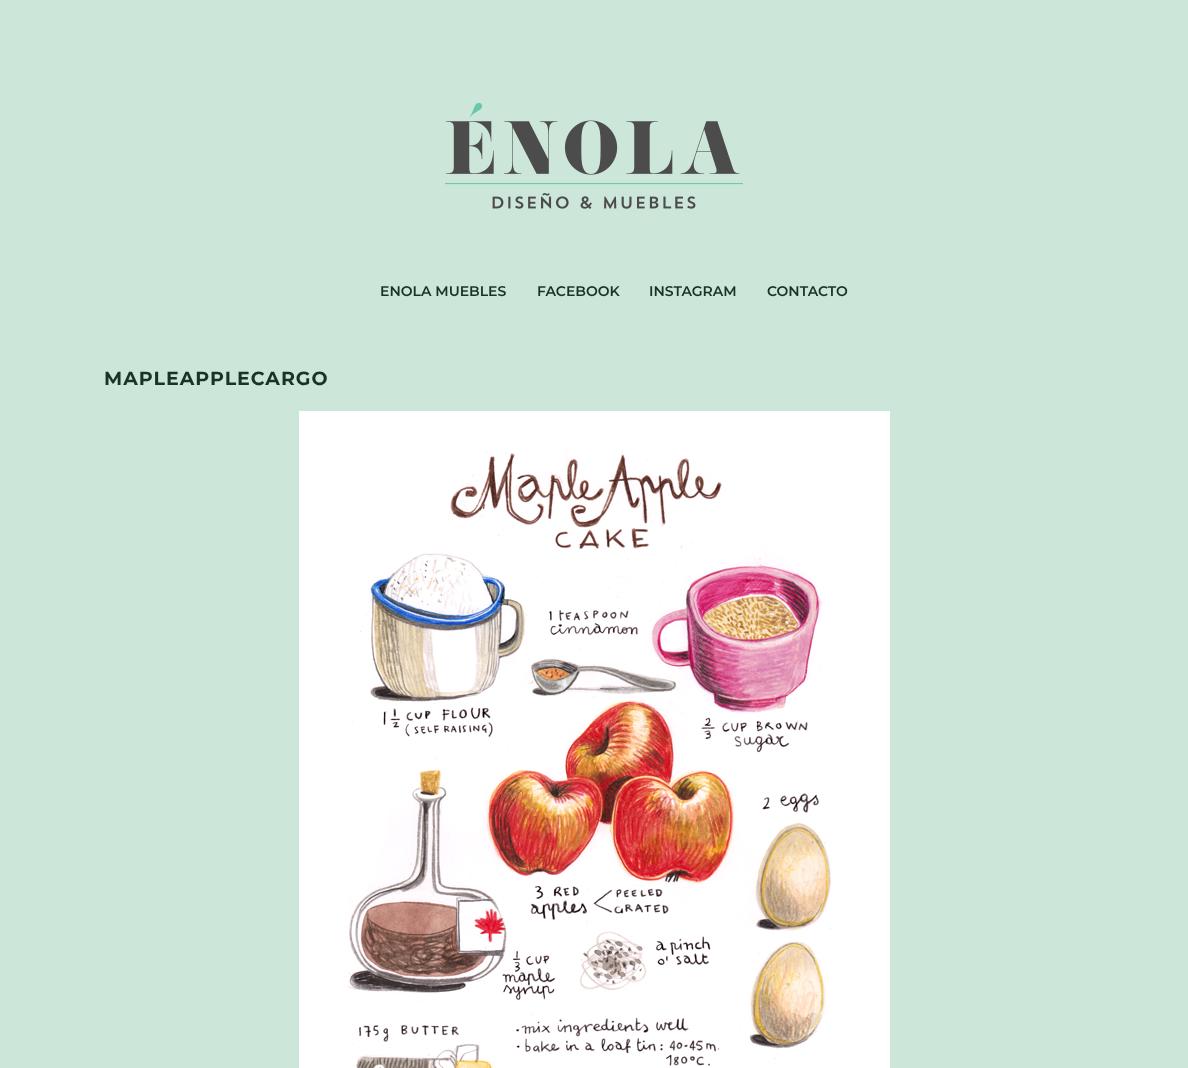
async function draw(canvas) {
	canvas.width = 1188;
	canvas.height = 1068;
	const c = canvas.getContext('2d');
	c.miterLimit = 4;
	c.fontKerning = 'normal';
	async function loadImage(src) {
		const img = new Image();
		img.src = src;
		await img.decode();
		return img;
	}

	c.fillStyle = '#cce6d9';
	c.fillRect(0, 0, 1188, 1068);
	c.drawImage(await loadImage('img1.png'), 445, 103, 298, 106);
	c.font = '600 14px Montserrat';
	c.fillStyle = '#193326';
	for (const [text, x, y] of [
		['ENOLA MUEBLES', 380, 296],
		['FACEBOOK', 537, 296],
		['INSTAGRAM', 649, 296],
		['CONTACTO', 767, 296],
	]) {
		c.fillText(text, x, y);
	}
	c.letterSpacing = '1px';
	c.font = 'bold 19px Montserrat';
	c.fillText('MAPLEAPPLECARGO', 104, 385);
	c.drawImage(await loadImage('img2.png'), 299, 411, 591, 657);
}

draw(document.querySelector('canvas'));
